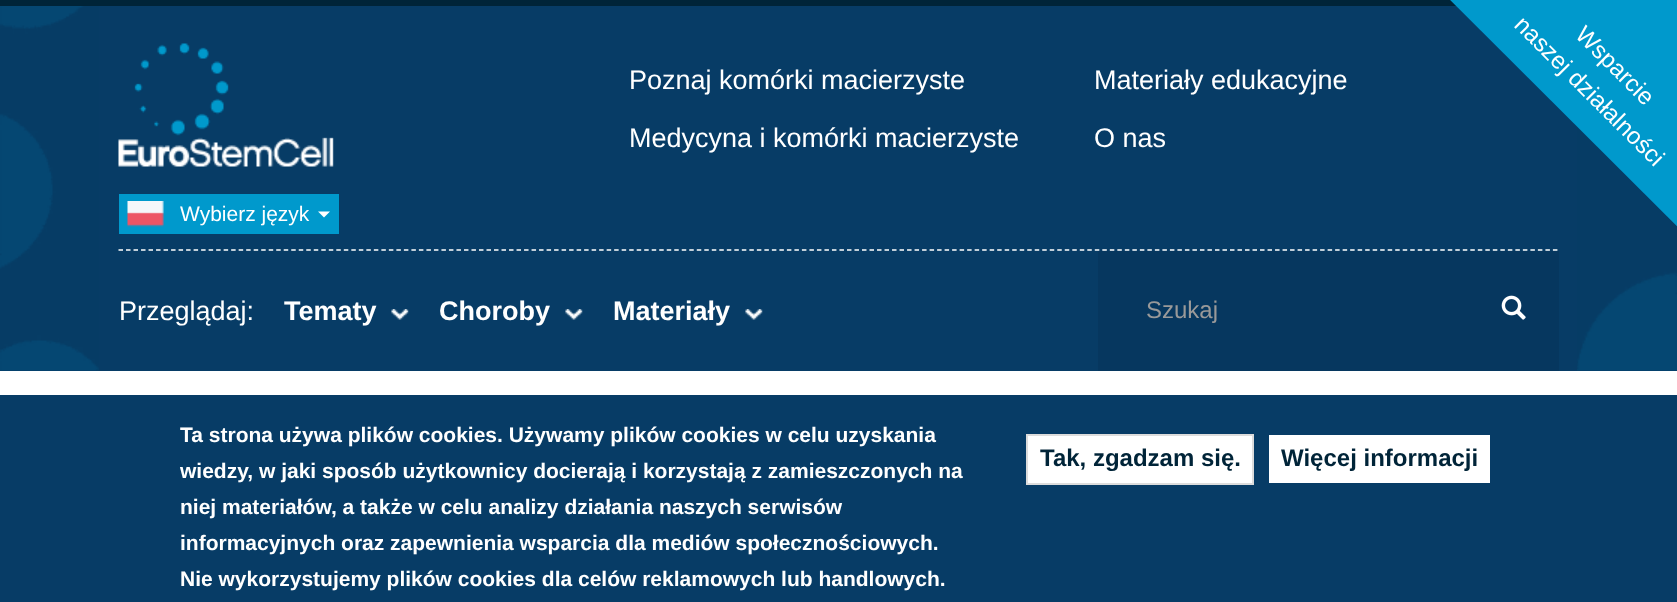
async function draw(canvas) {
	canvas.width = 1677;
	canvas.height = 602;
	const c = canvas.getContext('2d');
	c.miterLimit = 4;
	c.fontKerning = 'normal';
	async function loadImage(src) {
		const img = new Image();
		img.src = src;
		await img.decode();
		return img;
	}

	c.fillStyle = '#fff';
	c.fillRect(0, 0, 1677, 602);
	c.fillStyle = '#073c66';
	c.fillRect(0, 6, 1677, 365);
	c.drawImage(await loadImage('img1.png'), 0, 6, 99, 365);
	c.drawImage(await loadImage('img2.png'), 1577, 126, 100, 245);
	c.fillStyle = '#002438';
	c.fillRect(0, 0, 1457, 6);
	c.drawImage(await loadImage('img3.png'), 118, 43, 216, 124);
	c.font = '27px Liberation Sans';
	c.fillStyle = '#fff';
	for (const [text, x, y] of [
		['Poznaj komórki macierzyste', 629, 89],
		['Materiały edukacyjne', 1094, 89],
		['Medycyna i komórki macierzyste', 629, 147],
		['O nas', 1094, 147],
	]) {
		c.fillText(text, x, y);
	}
	c.fillStyle = '#09c';
	c.fillRect(119, 194, 220, 40);
	c.drawImage(await loadImage('img4.png'), 127, 201, 37, 26);
	c.font = '21px Liberation Sans';
	c.fillStyle = '#fff';
	c.fillText('Wybierz język', 180, 221);
	c.beginPath();
	c.moveTo(318, 211.5);
	c.lineTo(330, 211.5);
	c.lineTo(324, 217.5);
	c.closePath();
	c.fill();
	c.beginPath();
	c.moveTo(118.5, 250);
	c.lineTo(1558.5, 250);
	c.strokeStyle = '#fff';
	c.lineWidth = 1.5;
	c.setLineDash([4.5, 3.01]);
	c.stroke();
	c.font = '27px Liberation Sans';
	c.fillText('Przeglądaj:', 119, 320);
	c.font = 'bold 27px Liberation Sans';
	c.fillText('Tematy', 284, 320);
	c.drawImage(await loadImage('img5.png'), 391, 309, 18, 11);
	c.fillText('Choroby', 439, 320);
	c.drawImage(await loadImage('img5.png'), 565, 309, 18, 11);
	c.fillText('Materiały', 613, 320);
	c.drawImage(await loadImage('img5.png'), 745, 309, 18, 11);
	c.fillStyle = '#06375f';
	c.fillRect(1098, 251, 461, 120);
	c.font = '24px Liberation Sans';
	c.fillStyle = '#999';
	c.fillText('Szukaj', 1146, 318);
	c.drawImage(await loadImage('img6.png'), 1501, 295, 25, 25);
	c.fillStyle = '#09c';
	c.beginPath();
	c.moveTo(1521, -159);
	c.lineTo(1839, 159);
	c.lineTo(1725, 274);
	c.lineTo(1406, -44);
	c.closePath();
	c.fill();
	c.fillStyle = '#fff';
	c.save();
	c.translate(1574, 36);
	c.rotate(45 * Math.PI / 180);
	c.fillText('Wsparcie', 0, 0);
	c.restore();
	c.save();
	c.translate(1513, 26);
	c.rotate(45 * Math.PI / 180);
	c.fillText('naszej działalności', 0, 0);
	c.restore();
	c.fillStyle = '#073c66';
	c.fillRect(0, 395, 1677, 207);
	c.font = 'bold 21px Liberation Sans';
	c.fillStyle = '#fff';
	for (const [text, x, y] of [
		['Ta strona używa plików cookies. Używamy plików cookies w celu uzyskania', 180, 442],
		['wiedzy, w jaki sposób użytkownicy docierają i korzystają z zamieszczonych na', 180, 478],
		['niej materiałów, a także w celu analizy działania naszych serwisów', 180, 514],
		['informacyjnych oraz zapewnienia wsparcia dla mediów społecznościowych.', 180, 550],
		['Nie wykorzystujemy plików cookies dla celów reklamowych lub handlowych.', 180, 586],
	]) {
		c.fillText(text, x, y);
	}
	c.beginPath();
	c.rect(1027, 435, 226, 49);
	c.fill();
	c.strokeStyle = '#dcdcdc';
	c.lineWidth = 2;
	c.setLineDash([]);
	c.stroke();
	c.font = 'bold 24px Liberation Sans';
	c.fillStyle = '#002438';
	c.fillText('Tak, zgadzam się.', 1040, 466);
	c.fillStyle = '#fff';
	c.fillRect(1269, 435, 221, 48);
	c.fillStyle = '#002438';
	c.fillText('Więcej informacji', 1281, 466);
}

draw(document.querySelector('canvas'));
